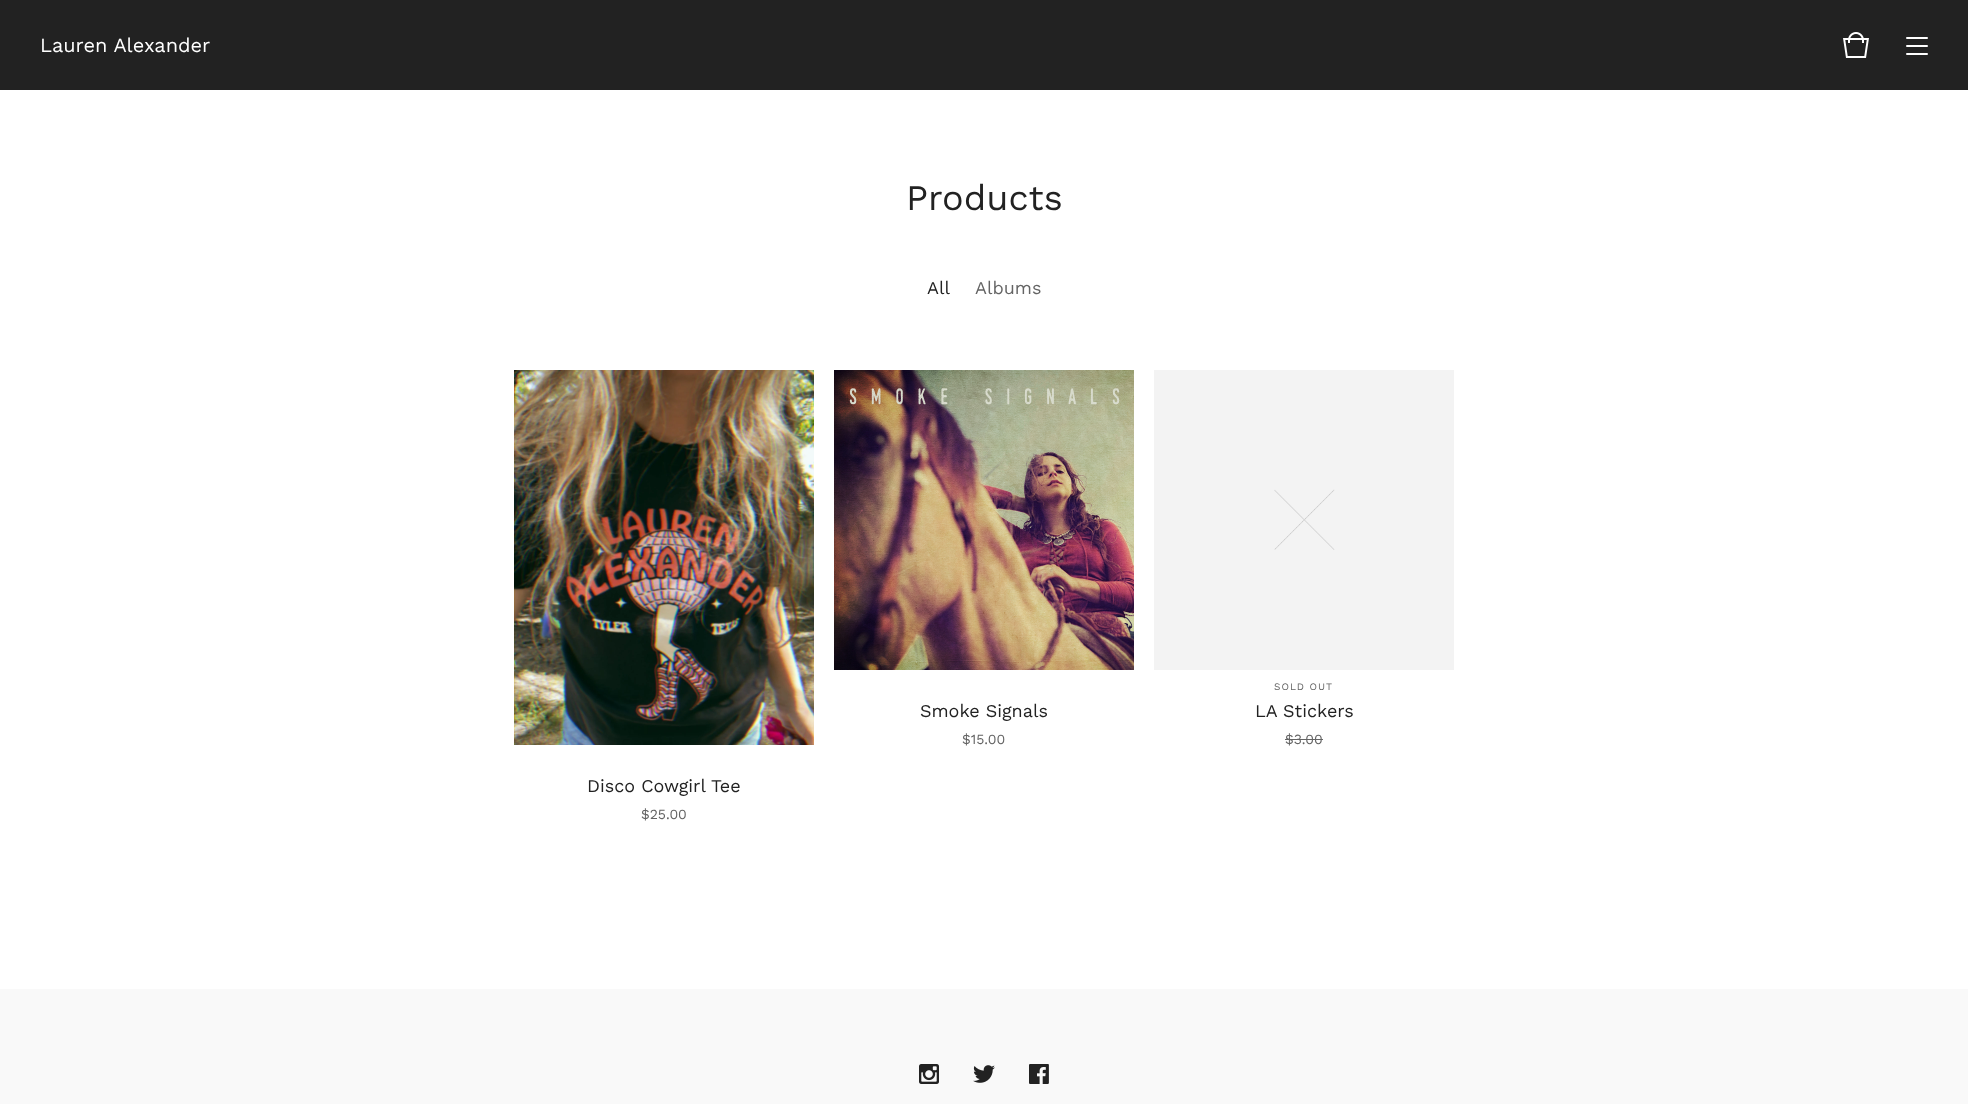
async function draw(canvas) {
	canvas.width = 1968;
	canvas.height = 1104;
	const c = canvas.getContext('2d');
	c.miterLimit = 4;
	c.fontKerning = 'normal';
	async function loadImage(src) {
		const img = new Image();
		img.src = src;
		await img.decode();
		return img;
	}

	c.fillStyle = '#fff';
	c.fillRect(0, 0, 1968, 1104);
	c.fillStyle = '#222';
	c.fillRect(0, 0, 1968, 90);
	c.font = '20px Work Sans';
	c.fillStyle = '#fff';
	c.fillText('Lauren Alexander', 40, 52);
	c.drawImage(await loadImage('img1.png'), 1843, 32, 26, 26);
	c.beginPath();
	c.roundRect(1906, 37, 22, 2, 1);
	c.fill();
	c.beginPath();
	c.roundRect(1906, 45, 22, 2, 1);
	c.fill();
	c.beginPath();
	c.roundRect(1906, 53, 22, 2, 1);
	c.fill();
	c.font = '36px Work Sans';
	c.fillStyle = '#222';
	c.fillText('Products', 906, 210);
	c.font = '18px Work Sans';
	c.fillText('All', 927, 294);
	c.fillStyle = '#646464';
	c.fillText('Albums', 975, 294);
	c.drawImage(await loadImage('img2.png'), 834, 370, 300, 300);
	c.fillStyle = '#222';
	c.fillText('Smoke Signals', 920, 717);
	c.font = '14px Work Sans';
	c.fillStyle = '#646464';
	c.fillText('$15.00', 962, 744);
	c.drawImage(await loadImage('img3.png'), 1154, 370, 300, 300);
	c.letterSpacing = '1px';
	c.font = '10px Work Sans';
	c.fillText('SOLD OUT', 1274, 690);
	c.letterSpacing = '0px';
	c.font = '18px Work Sans';
	c.fillStyle = '#222';
	c.fillText('LA Stickers', 1255, 717);
	c.font = '14px Work Sans';
	c.fillStyle = '#646464';
	c.fillText('$3.00', 1285, 744);
	c.fillRect(1285, 739, 38, 1);
	c.drawImage(await loadImage('img4.png'), 514, 370, 300, 375);
	c.font = '18px Work Sans';
	c.fillStyle = '#222';
	c.fillText('Disco Cowgirl Tee', 587, 792);
	c.font = '14px Work Sans';
	c.fillStyle = '#646464';
	c.fillText('$25.00', 641, 819);
	c.fillStyle = '#f9f9f9';
	c.fillRect(0, 989, 1968, 115);
	c.drawImage(await loadImage('img5.png'), 919, 1064, 20, 20);
	c.drawImage(await loadImage('img6.png'), 973, 1065, 22, 18);
	c.drawImage(await loadImage('img7.png'), 1029, 1064, 20, 20);
}

draw(document.querySelector('canvas'));
